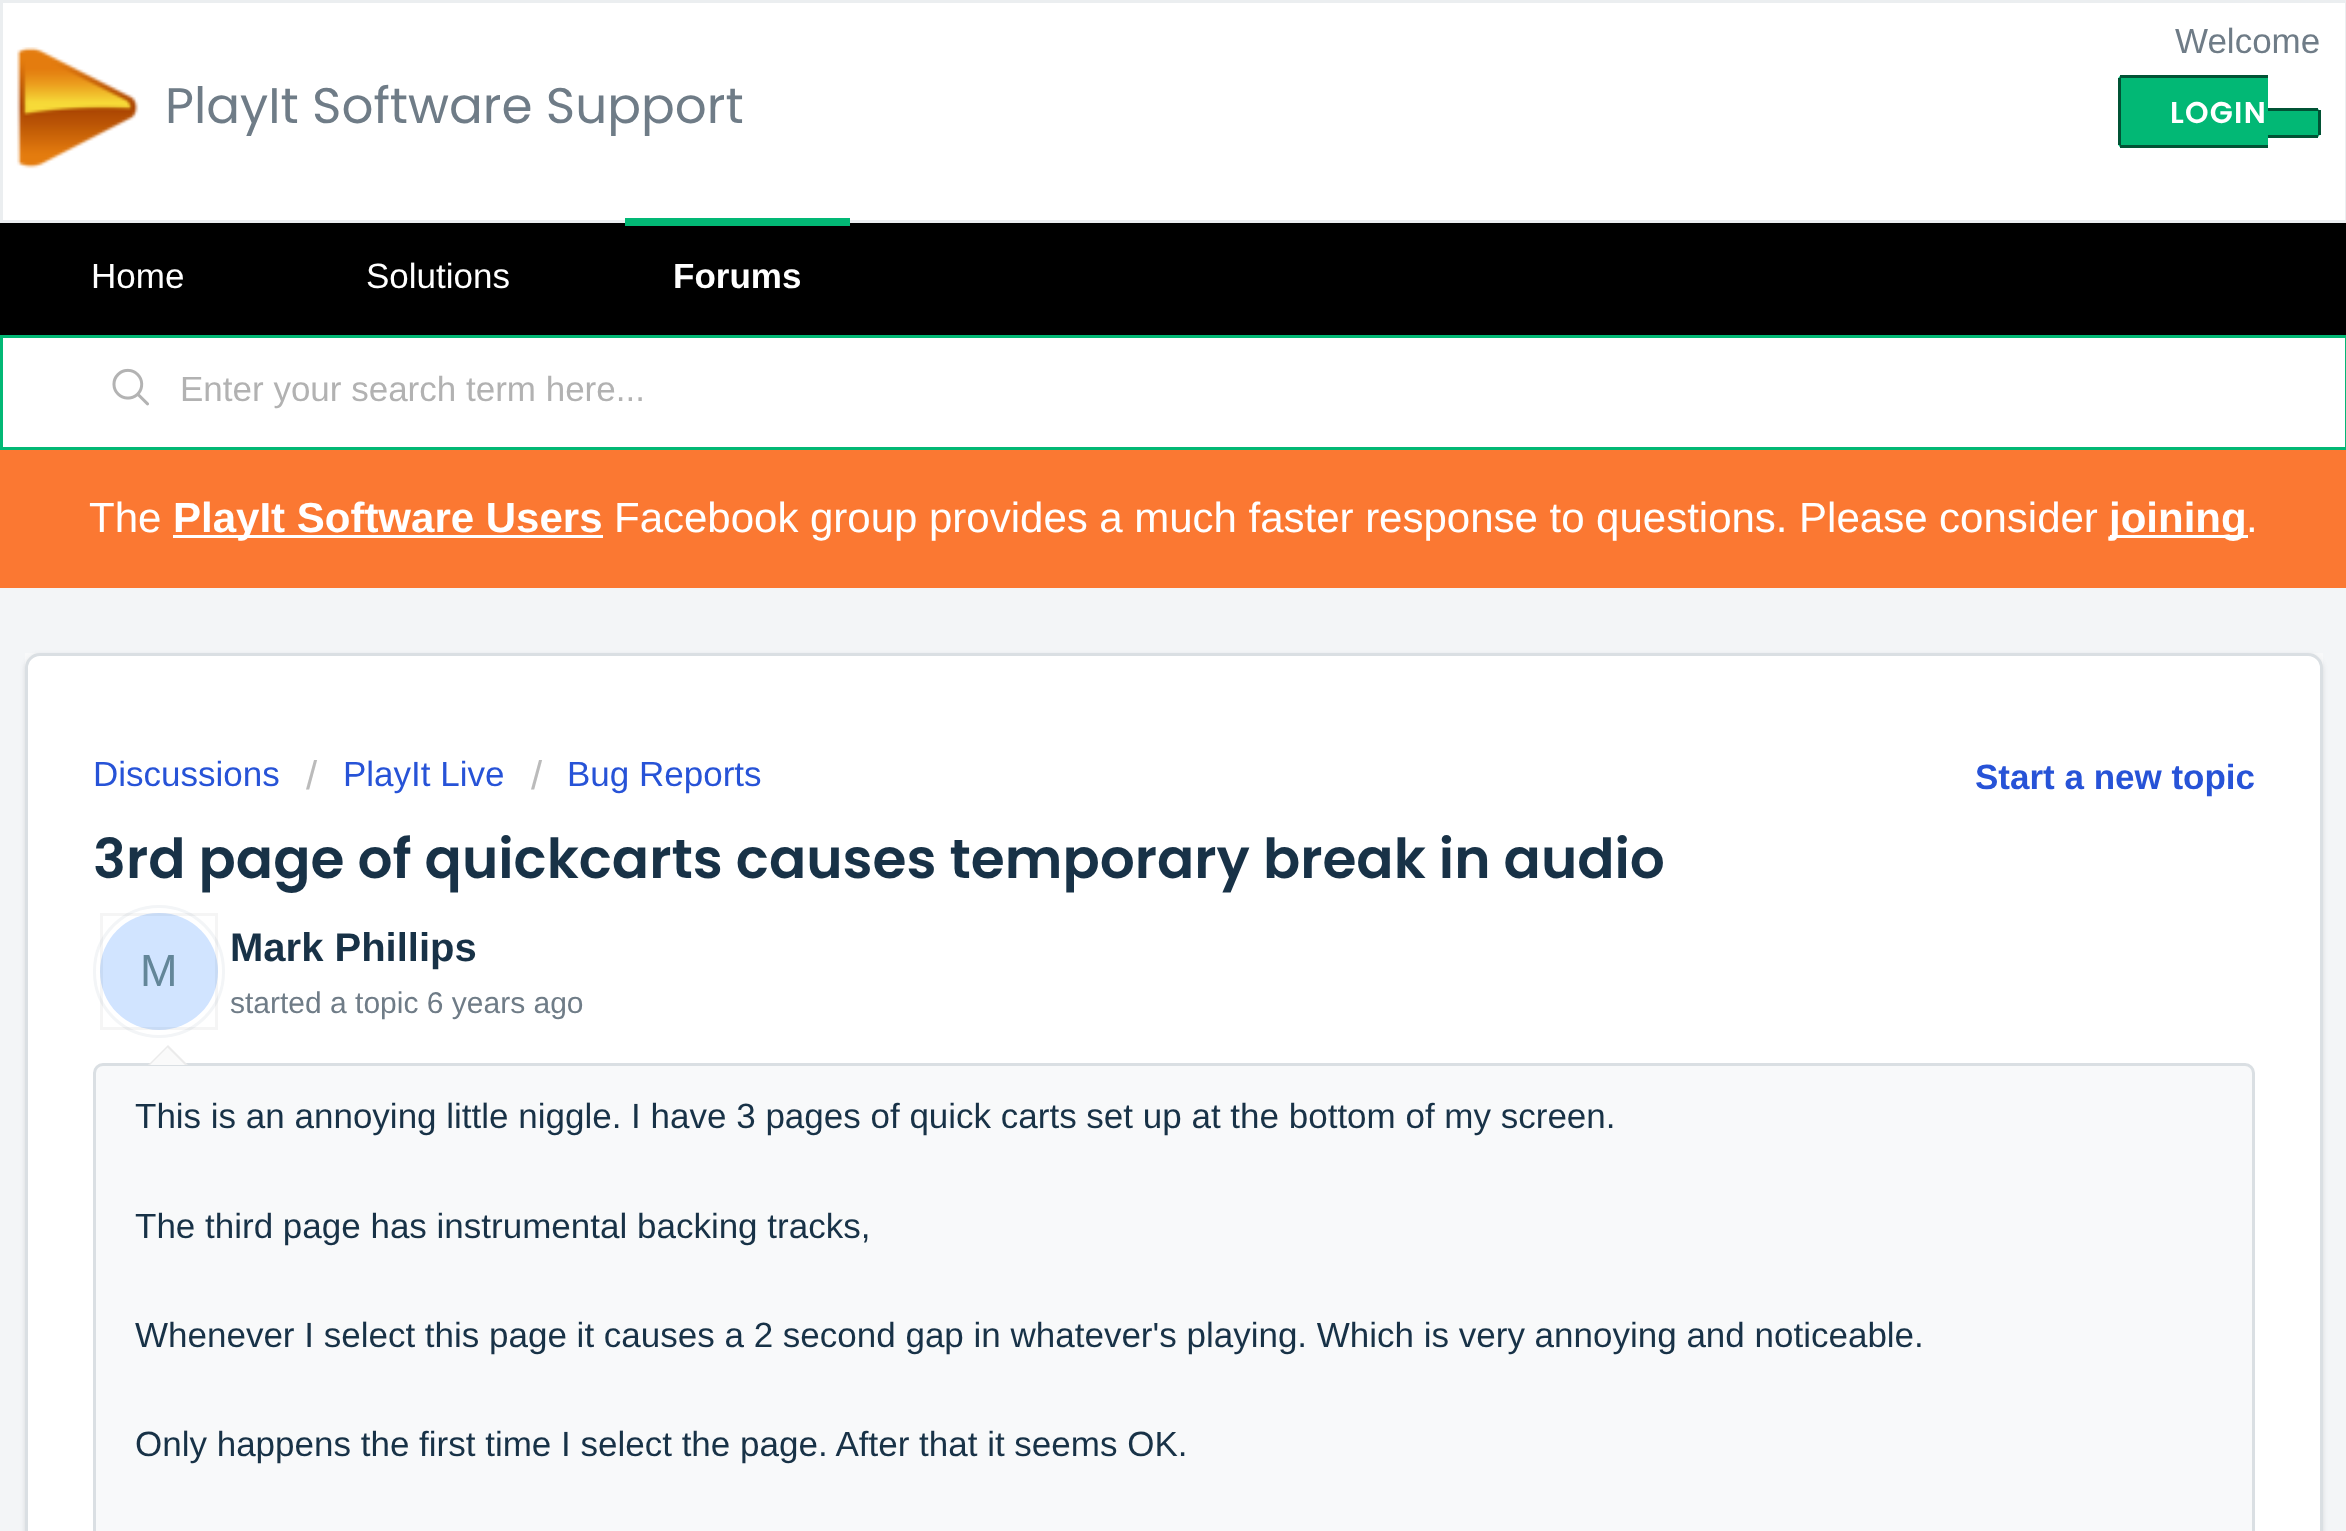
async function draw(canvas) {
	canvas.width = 2346;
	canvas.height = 1531;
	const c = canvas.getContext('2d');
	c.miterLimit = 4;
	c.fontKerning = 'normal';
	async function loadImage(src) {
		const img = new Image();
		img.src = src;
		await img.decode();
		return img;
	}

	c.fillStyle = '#f3f5f7';
	c.fillRect(0, 0, 2346, 1531);
	c.fillStyle = '#fff';
	c.beginPath();
	c.rect(1.5, 1.5, 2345, 220);
	c.fill();
	c.strokeStyle = '#ebeef0';
	c.lineWidth = 3;
	c.stroke();
	c.drawImage(await loadImage('img1.png'), 16, 47, 123, 122);
	c.font = '50px Poppins';
	c.fillStyle = '#6f7c87';
	c.fillText('PlayIt Software Support', 165, 123);
	c.font = '35px Liberation Sans';
	c.fillText('Welcome', 2175, 53);
	c.fillStyle = '#02b875';
	c.beginPath();
	c.roundRect(2118, 75, 150, 73, [5, 0, 0, 5]);
	c.fill();
	c.letterSpacing = '1.25px';
	c.font = '600 30px Poppins';
	c.fillStyle = '#fff';
	c.fillText('LOGIN', 2170, 123);
	for (const [x, y, w, h, color] of [
		[2120, 75, 148, 3, '#015335'],
		[2120, 145, 148, 3, '#015335'],
		[2118, 78, 3, 67, '#015335'],
	]) {
		c.fillStyle = color;
		c.fillRect(x, y, w, h);
	}
	c.fillStyle = '#02b875';
	c.beginPath();
	c.roundRect(2268, 108, 52, 30, [0, 5, 5, 0]);
	c.fill();
	for (const [x, y, w, h, color] of [
		[2268, 108, 50, 3, '#015335'],
		[2318, 110, 3, 25, '#015335'],
		[2268, 135, 50, 3, '#015335'],
		[0, 223, 2346, 112, '#000'],
	]) {
		c.fillStyle = color;
		c.fillRect(x, y, w, h);
	}
	c.letterSpacing = '0px';
	c.font = '35px Liberation Sans';
	c.fillStyle = '#fff';
	c.fillText('Home', 91, 288);
	c.fillText('Solutions', 366, 288);
	c.fillStyle = '#02b875';
	c.fillRect(625, 218, 225, 8);
	c.font = 'bold 35px Liberation Sans';
	c.fillStyle = '#fff';
	c.fillText('Forums', 673, 288);
	c.beginPath();
	c.rect(1.5, 336.5, 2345, 112);
	c.fill();
	c.strokeStyle = '#02b875';
	c.stroke();
	c.drawImage(await loadImage('img2.png'), 112, 368, 37, 38);
	c.font = '35px Liberation Sans';
	c.fillStyle = '#b2b2b2';
	c.fillText('Enter your search term here...', 180, 401);
	c.fillStyle = '#fb7832';
	c.fillRect(0, 450, 2346, 138);
	c.font = '42px Liberation Sans';
	c.fillStyle = '#fff';
	c.fillText('The', 89, 532);
	c.fillRect(173, 535, 430, 3);
	c.font = 'bold 42px Liberation Sans';
	c.fillText('PlayIt Software Users', 173, 532);
	c.wordSpacing = '-0.1px';
	c.font = '42px Liberation Sans';
	c.fillText('Facebook group provides a much faster response to questions. Please consider', 614, 532);
	c.fillRect(2110, 535, 138, 3);
	c.wordSpacing = '0px';
	c.font = 'bold 42px Liberation Sans';
	c.fillText('joining', 2109, 532);
	c.font = '42px Liberation Sans';
	c.fillText('.', 2246, 532);
	c.fillStyle = '#f8f9fa';
	c.fillRect(25, 653, 2298, 15);
	c.fillStyle = '#3f3f4426';
	c.filter = 'blur(2.5px)';
	c.beginPath();
	c.roundRect(25, 655, 2298, 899, 15);
	c.fill();
	c.filter = 'none';
	c.fillStyle = '#fff';
	c.beginPath();
	c.roundRect(26.5, 654.5, 2295, 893, 13.5);
	c.fill();
	c.strokeStyle = '#dadfe3';
	c.stroke();
	c.font = '35px Liberation Sans';
	c.fillStyle = '#2753d7';
	c.fillText('Discussions', 93, 786);
	c.font = '40px Liberation Sans';
	c.fillStyle = '#bbb';
	c.fillText('/', 306, 789);
	c.font = '35px Liberation Sans';
	c.fillStyle = '#2753d7';
	c.fillText('PlayIt Live', 343, 786);
	c.font = '40px Liberation Sans';
	c.fillStyle = '#bbb';
	c.fillText('/', 531, 789);
	c.font = '35px Liberation Sans';
	c.fillStyle = '#2753d7';
	c.fillText('Bug Reports', 567, 786);
	c.font = 'bold 35px Liberation Sans';
	c.fillText('Start a new topic', 1975, 789);
	c.font = '600 55px Poppins';
	c.fillStyle = '#183247';
	c.fillText('3rd page of quickcarts causes temporary break in audio', 93, 878);
	c.beginPath();
	c.roundRect(94.5, 906.5, 129, 130, 64.5);
	c.strokeStyle = '#f3f5f7';
	c.stroke();
	c.fillStyle = '#d1e4ff';
	c.beginPath();
	c.roundRect(100, 913, 118, 117, 58.5);
	c.fill();
	c.strokeStyle = '#0000000a';
	c.strokeRect(101.5, 914.5, 115, 114);
	c.font = '45px Liberation Sans';
	c.fillStyle = '#638699';
	c.fillText('M', 140, 986);
	c.fillStyle = '#f8f9fa';
	c.beginPath();
	c.roundRect(94.5, 1064.5, 2159, 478, 8.5);
	c.fill();
	c.strokeStyle = '#dadfe3';
	c.stroke();
	c.fillStyle = '#ebebeb';
	c.beginPath();
	c.moveTo(188, 1065);
	c.lineTo(148, 1065);
	c.lineTo(168, 1045);
	c.closePath();
	c.fill();
	c.fillStyle = '#fafafa';
	c.beginPath();
	c.moveTo(185, 1065);
	c.lineTo(150, 1065);
	c.lineTo(167.5, 1047.5);
	c.closePath();
	c.fill();
	c.font = 'bold 40px Liberation Sans';
	c.fillStyle = '#183247';
	c.fillText('Mark Phillips', 230, 961);
	c.font = '30px Liberation Sans';
	c.fillStyle = '#6f7c87';
	c.fillText('started a topic 6 years ago', 230, 1013);
	c.font = '35px Liberation Sans';
	c.fillStyle = '#183247';
	for (const [text, x, y] of [
		['This is an annoying little niggle. I have 3 pages of quick carts set up at the bottom of my screen.', 135, 1128],
		['The third page has instrumental backing tracks,', 135, 1238],
		['Whenever I select this page it causes a 2 second gap in whatever\'s playing. Which is very annoying and noticeable.', 135, 1347],
		['Only happens the first time I select the page. After that it seems OK.', 135, 1456],
	]) {
		c.fillText(text, x, y);
	}
}

draw(document.querySelector('canvas'));
